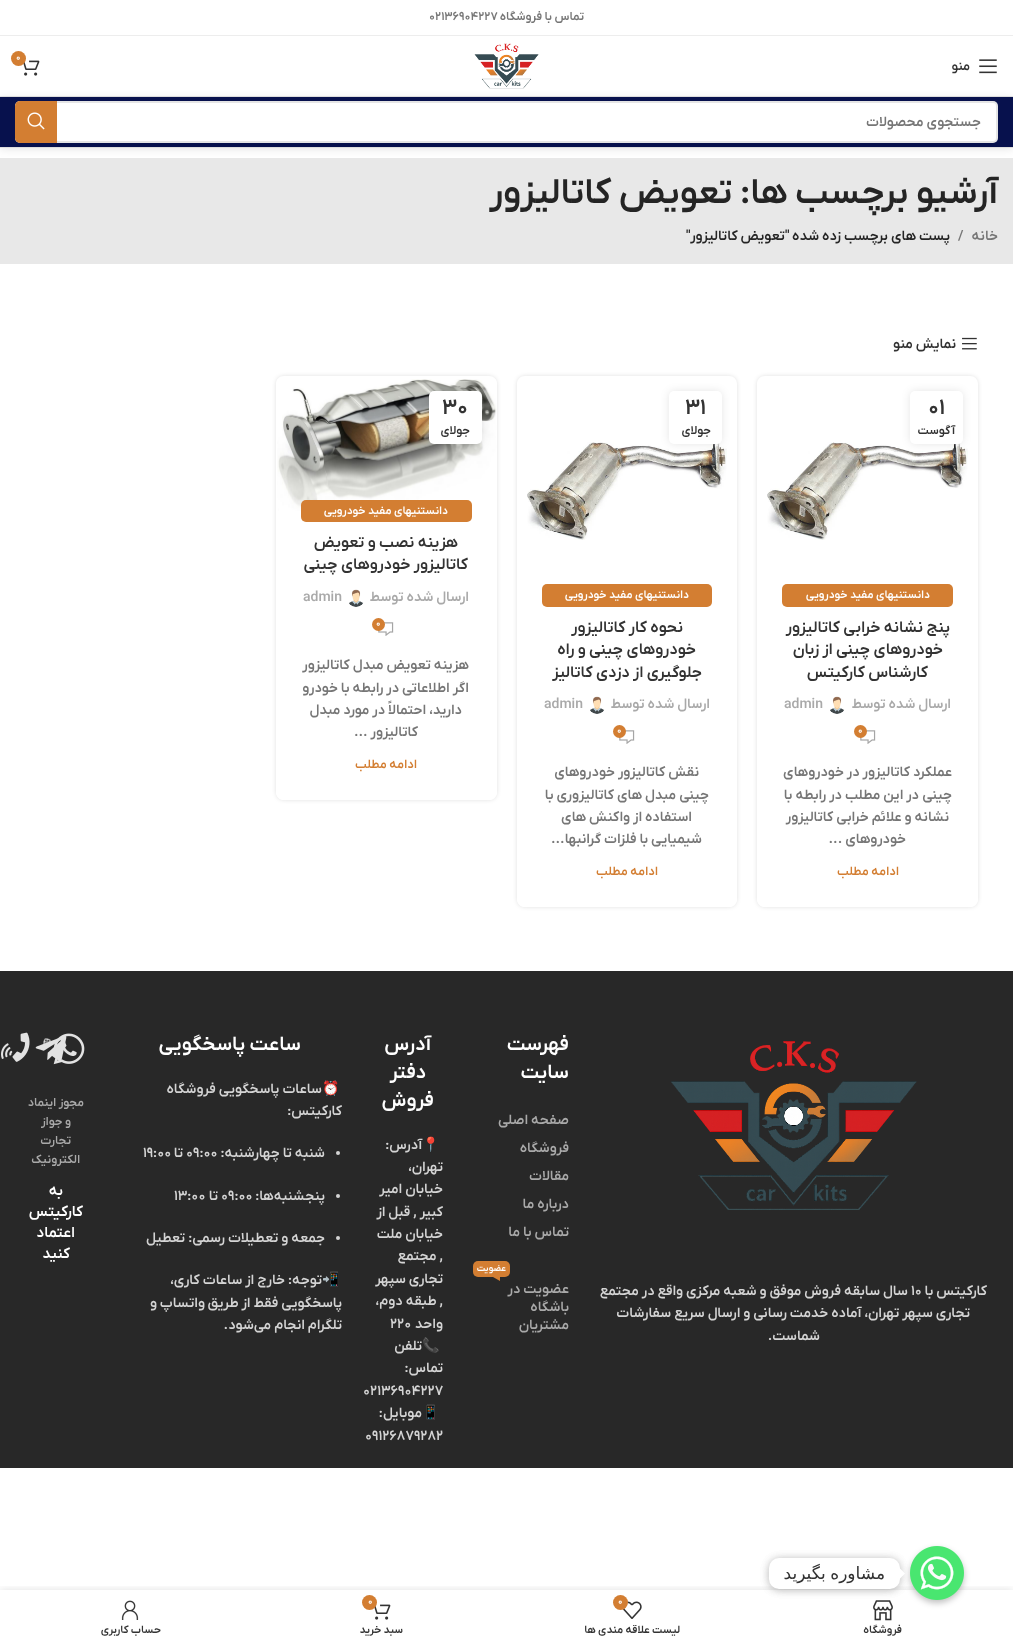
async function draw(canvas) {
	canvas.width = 1013;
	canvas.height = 1645;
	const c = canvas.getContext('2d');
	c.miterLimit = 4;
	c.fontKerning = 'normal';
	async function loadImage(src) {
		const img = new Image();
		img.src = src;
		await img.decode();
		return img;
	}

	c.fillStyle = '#fff';
	c.fillRect(0, 0, 1013, 1645);
	c.fillStyle = '#ededed';
	c.fillRect(0, 35, 1013, 1);
	c.direction = 'rtl';
	c.font = '600 12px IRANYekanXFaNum';
	c.fillStyle = '#767676';
	c.fillText('تماس با فروشگاه', 584, 20);
	c.direction = 'ltr';
	c.fillText('02136904227', 429, 20);
	c.fillStyle = '#e6e6e6';
	c.fillRect(0, 96, 1013, 1);
	c.drawImage(await loadImage('img1.png'), 474, 43, 65, 46);
	c.drawImage(await loadImage('img2.png'), 23, 60, 17, 16);
	c.fillStyle = '#d37e32';
	c.beginPath();
	c.arc(18.5, 58.5, 7.5, 0, 2 * Math.PI);
	c.fill();
	c.font = '600 9px IRANYekanXFaNum';
	c.fillStyle = '#fff';
	c.fillText('0', 16, 60);
	c.drawImage(await loadImage('img3.png'), 979, 59, 18, 15);
	c.direction = 'rtl';
	c.font = '600 13px IRANYekanXFaNum';
	c.fillStyle = '#333';
	c.fillText('منو', 970, 70);
	c.fillStyle = '#e8e8e8';
	c.fillRect(0, 158, 1013, 106);
	c.fillStyle = '#0000001a';
	c.filter = 'blur(4px)';
	c.beginPath();
	c.rect(0, 98, 1013, 51);
	c.fill();
	c.filter = 'none';
	c.fillStyle = '#07114d';
	c.fillRect(0, 97, 1013, 50);
	c.fillStyle = '#dedede';
	c.fillRect(0, 147, 1013, 1);
	c.fillStyle = '#fff';
	c.beginPath();
	c.roundRect(15, 101, 983, 42, 5);
	c.fill();
	c.beginPath();
	c.roundRect(16, 102, 981, 40, 4);
	c.strokeStyle = '#0000001a';
	c.lineWidth = 2;
	c.stroke();
	c.font = '600 14px IRANYekanXFaNum';
	c.fillStyle = '#767676';
	c.fillText('جستجوی محصولات', 981, 126);
	c.fillStyle = '#d37e32';
	c.beginPath();
	c.roundRect(15, 101, 42, 42, [5, 0, 0, 5]);
	c.fill();
	c.drawImage(await loadImage('img4.png'), 27, 112, 18, 18);
	c.font = '600 36px IRANYekanXFaNum';
	c.fillStyle = '#242424';
	c.fillText('آرشیو برچسب ها: تعویض کاتالیزور', 998, 203);
	c.font = '600 14px IRANYekanXFaNum';
	c.fillStyle = '#767676';
	c.fillText('خانه', 998, 240);
	c.direction = 'ltr';
	c.fillText('/', 958, 240);
	c.direction = 'rtl';
	c.fillStyle = '#242424';
	c.fillText('پست های برچسب زده شده "تعویض کاتالیزور"', 950, 240);
	c.drawImage(await loadImage('img5.png'), 962, 337, 15, 13);
	c.fillStyle = '#333';
	c.fillText('نمایش منو', 956, 348);
	c.save();
	c.beginPath();
	c.moveTo(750, 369);
	c.lineTo(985, 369);
	c.lineTo(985, 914);
	c.lineTo(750, 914);
	c.closePath();
	c.moveTo(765, 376);
	c.lineTo(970, 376);
	c.bezierCurveTo(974.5, 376, 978, 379.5, 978, 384);
	c.lineTo(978, 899);
	c.bezierCurveTo(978, 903.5, 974.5, 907, 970, 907);
	c.lineTo(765, 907);
	c.bezierCurveTo(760.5, 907, 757, 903.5, 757, 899);
	c.lineTo(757, 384);
	c.bezierCurveTo(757, 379.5, 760.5, 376, 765, 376);
	c.closePath();
	c.clip('evenodd');
	c.fillStyle = '#0000001f';
	c.filter = 'blur(2px)';
	c.beginPath();
	c.roundRect(757, 376, 221, 531, 8);
	c.fill();
	c.filter = 'none';
	c.restore();
	c.drawImage(await loadImage('img6.png'), 767, 439, 201, 101);
	c.fillStyle = '#0000001a';
	c.filter = 'blur(4.5px)';
	c.beginPath();
	c.roundRect(910, 391, 53, 53, 5);
	c.fill();
	c.filter = 'none';
	c.fillStyle = '#fff';
	c.beginPath();
	c.roundRect(910, 391, 53, 53, 5);
	c.fill();
	c.direction = 'ltr';
	c.font = '600 22px IRANYekanXFaNum';
	c.fillStyle = '#333';
	c.fillText('01', 928, 414);
	c.direction = 'rtl';
	c.font = '600 12px IRANYekanXFaNum';
	c.fillText('آگوست', 955, 434);
	c.fillStyle = '#fff';
	c.beginPath();
	c.roundRect(757, 597, 221, 310, [0, 0, 8, 8]);
	c.fill();
	c.fillStyle = '#d37e32';
	c.beginPath();
	c.roundRect(782, 584, 171, 23, 5);
	c.fill();
	c.font = '600 11.25px IRANYekanXFaNum';
	c.fillStyle = '#fff';
	c.fillText('دانستنیهای مفید خودرویی', 930, 598);
	c.font = '600 16px IRANYekanXFaNum';
	c.fillStyle = '#333';
	for (const [text, x, y] of [
		['پنج نشانه خرابی کاتالیزور', 950, 632],
		['خودروهای چینی از زبان', 943, 654],
		['کارشناس کارکیتس', 928, 677],
	]) {
		c.fillText(text, x, y);
	}
	c.font = '600 14px IRANYekanXFaNum';
	c.fillStyle = '#a9a9a9';
	c.fillText('ارسال شده توسط', 951, 708);
	c.drawImage(await loadImage('img7.png'), 830, 696, 15, 18);
	c.direction = 'ltr';
	c.fillText('admin', 784, 708);
	c.drawImage(await loadImage('img8.png'), 860, 730, 16, 14);
	c.fillStyle = '#d37e32';
	c.beginPath();
	c.arc(860.5, 731.5, 6.5, 0, 2 * Math.PI);
	c.fill();
	c.font = '600 9px IRANYekanXFaNum';
	c.fillStyle = '#fff';
	c.fillText('0', 858, 733);
	c.direction = 'rtl';
	c.font = '600 14px IRANYekanXFaNum';
	c.fillStyle = '#767676';
	for (const [text, x, y] of [
		['عملکرد کاتالیزور در خودروهای', 952, 776],
		['چینی', 952, 799],
		['در این مطلب در رابطه با', 919, 799],
		['نشانه و علائم خرابی کاتالیزور', 949, 821],
		['خودروهای ...', 906, 843],
	]) {
		c.fillText(text, x, y);
	}
	c.font = '600 12.5px IRANYekanXFaNum';
	c.fillStyle = '#d37e32';
	c.fillText('ادامه مطلب', 899, 875);
	c.save();
	c.beginPath();
	c.moveTo(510, 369);
	c.lineTo(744, 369);
	c.lineTo(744, 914);
	c.lineTo(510, 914);
	c.closePath();
	c.moveTo(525, 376);
	c.lineTo(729, 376);
	c.bezierCurveTo(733.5, 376, 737, 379.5, 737, 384);
	c.lineTo(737, 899);
	c.bezierCurveTo(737, 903.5, 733.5, 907, 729, 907);
	c.lineTo(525, 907);
	c.bezierCurveTo(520.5, 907, 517, 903.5, 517, 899);
	c.lineTo(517, 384);
	c.bezierCurveTo(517, 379.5, 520.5, 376, 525, 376);
	c.closePath();
	c.clip('evenodd');
	c.fillStyle = '#0000001f';
	c.filter = 'blur(2px)';
	c.beginPath();
	c.roundRect(517, 376, 220, 531, 8);
	c.fill();
	c.filter = 'none';
	c.restore();
	c.drawImage(await loadImage('img9.png'), 527, 438, 200, 102);
	c.fillStyle = '#0000001a';
	c.filter = 'blur(4.5px)';
	c.beginPath();
	c.roundRect(669, 391, 53, 53, 5);
	c.fill();
	c.filter = 'none';
	c.fillStyle = '#fff';
	c.beginPath();
	c.roundRect(669, 391, 53, 53, 5);
	c.fill();
	c.direction = 'ltr';
	c.font = '600 22px IRANYekanXFaNum';
	c.fillStyle = '#333';
	c.fillText('31', 685, 414);
	c.direction = 'rtl';
	c.font = '600 12px IRANYekanXFaNum';
	c.fillText('جولای', 711, 434);
	c.fillStyle = '#fff';
	c.beginPath();
	c.roundRect(517, 597, 220, 310, [0, 0, 8, 8]);
	c.fill();
	c.fillStyle = '#d37e32';
	c.beginPath();
	c.roundRect(542, 584, 170, 23, 5);
	c.fill();
	c.font = '600 11.25px IRANYekanXFaNum';
	c.fillStyle = '#fff';
	c.fillText('دانستنیهای مفید خودرویی', 689, 598);
	c.font = '600 16px IRANYekanXFaNum';
	c.fillStyle = '#333';
	for (const [text, x, y] of [
		['نحوه کار کاتالیزور', 683, 632],
		['خودروهای چینی و راه', 696, 654],
		['جلوگیری از دزدی کاتالیز', 702, 677],
	]) {
		c.fillText(text, x, y);
	}
	c.font = '600 14px IRANYekanXFaNum';
	c.fillStyle = '#a9a9a9';
	c.fillText('ارسال شده توسط', 710, 708);
	c.drawImage(await loadImage('img10.png'), 590, 696, 15, 18);
	c.direction = 'ltr';
	c.fillText('admin', 544, 708);
	c.drawImage(await loadImage('img8.png'), 619, 730, 16, 14);
	c.fillStyle = '#d37e32';
	c.beginPath();
	c.arc(619.5, 731.5, 6.5, 0, 2 * Math.PI);
	c.fill();
	c.font = '600 9px IRANYekanXFaNum';
	c.fillStyle = '#fff';
	c.fillText('0', 617, 733);
	c.direction = 'rtl';
	c.font = '600 14px IRANYekanXFaNum';
	c.fillStyle = '#767676';
	for (const [text, x, y] of [
		['نقش کاتالیزور خودروهای', 699, 776],
		['چینی', 709, 799],
		['مبدل های کاتالیزوری با', 676, 799],
		['استفاده از واکنش های', 692, 821],
		['شیمیایی با فلزات گرانبها...', 702, 843],
	]) {
		c.fillText(text, x, y);
	}
	c.font = '600 12.5px IRANYekanXFaNum';
	c.fillStyle = '#d37e32';
	c.fillText('ادامه مطلب', 658, 875);
	c.save();
	c.beginPath();
	c.moveTo(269, 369);
	c.lineTo(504, 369);
	c.lineTo(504, 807);
	c.lineTo(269, 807);
	c.closePath();
	c.moveTo(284, 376);
	c.lineTo(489, 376);
	c.bezierCurveTo(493.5, 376, 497, 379.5, 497, 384);
	c.lineTo(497, 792);
	c.bezierCurveTo(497, 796.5, 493.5, 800, 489, 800);
	c.lineTo(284, 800);
	c.bezierCurveTo(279.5, 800, 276, 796.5, 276, 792);
	c.lineTo(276, 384);
	c.bezierCurveTo(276, 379.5, 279.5, 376, 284, 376);
	c.closePath();
	c.clip('evenodd');
	c.fillStyle = '#0000001f';
	c.filter = 'blur(2px)';
	c.beginPath();
	c.roundRect(276, 376, 221, 424, 8);
	c.fill();
	c.filter = 'none';
	c.restore();
	c.drawImage(await loadImage('img11.png'), 277, 379, 220, 132);
	c.fillStyle = '#0000001a';
	c.filter = 'blur(4.5px)';
	c.beginPath();
	c.roundRect(429, 391, 53, 53, 5);
	c.fill();
	c.filter = 'none';
	c.fillStyle = '#fff';
	c.beginPath();
	c.roundRect(429, 391, 53, 53, 5);
	c.fill();
	c.direction = 'ltr';
	c.font = '600 22px IRANYekanXFaNum';
	c.fillStyle = '#333';
	c.fillText('30', 442, 414);
	c.direction = 'rtl';
	c.font = '600 12px IRANYekanXFaNum';
	c.fillText('جولای', 470, 434);
	c.fillStyle = '#fff';
	c.beginPath();
	c.roundRect(276, 512, 221, 288, [0, 0, 8, 8]);
	c.fill();
	c.fillStyle = '#d37e32';
	c.beginPath();
	c.roundRect(301, 500, 171, 22, 5);
	c.fill();
	c.font = '600 11.25px IRANYekanXFaNum';
	c.fillStyle = '#fff';
	c.fillText('دانستنیهای مفید خودرویی', 448, 514);
	c.font = '600 16px IRANYekanXFaNum';
	c.fillStyle = '#333';
	c.fillText('هزینه نصب و تعویض', 458, 547);
	c.fillText('کاتالیزور خودروهای چینی', 468, 569);
	c.font = '600 14px IRANYekanXFaNum';
	c.fillStyle = '#a9a9a9';
	c.fillText('ارسال شده توسط', 469, 601);
	c.drawImage(await loadImage('img12.png'), 349, 589, 15, 18);
	c.direction = 'ltr';
	c.fillText('admin', 303, 601);
	c.drawImage(await loadImage('img8.png'), 378, 622, 16, 14);
	c.fillStyle = '#d37e32';
	c.beginPath();
	c.arc(378.5, 624.5, 6.5, 0, 2 * Math.PI);
	c.fill();
	c.font = '600 9px IRANYekanXFaNum';
	c.fillStyle = '#fff';
	c.fillText('0', 376, 626);
	c.direction = 'rtl';
	c.font = '600 14px IRANYekanXFaNum';
	c.fillStyle = '#767676';
	for (const [text, x, y] of [
		['هزینه تعویض مبدل کاتالیزور', 469, 669],
		['اگر اطلاعاتی در رابطه با خودرو', 469, 692],
		['دارید، احتمالاً در مورد مبدل', 462, 714],
		['کاتالیزور ...', 418, 736],
	]) {
		c.fillText(text, x, y);
	}
	c.font = '600 12.5px IRANYekanXFaNum';
	c.fillStyle = '#d37e32';
	c.fillText('ادامه مطلب', 417, 768);
	c.fillStyle = '#282828';
	c.fillRect(0, 971, 1013, 497);
	c.font = '600 20px IRANYekanXFaNum';
	c.fillStyle = '#fff';
	c.fillText('فهرست', 569, 1050);
	c.fillText('سایت', 569, 1078);
	c.font = '600 14px IRANYekanXFaNum';
	c.fillStyle = '#a9a9a9';
	for (const [text, x, y] of [
		['صفحه اصلی', 569, 1124],
		['فروشگاه', 569, 1152],
		['مقالات', 569, 1180],
		['درباره ما', 569, 1208],
		['تماس با ما', 569, 1236],
	]) {
		c.fillText(text, x, y);
	}
	c.fillStyle = '#d37e32';
	c.beginPath();
	c.roundRect(473, 1261, 37, 16, 5);
	c.fill();
	c.font = '600 9px IRANYekanXFaNum';
	c.fillStyle = '#fff';
	c.fillText('عضویت', 506, 1271);
	c.fillStyle = '#d37e32';
	c.beginPath();
	c.moveTo(493, 1277);
	c.lineTo(500, 1277);
	c.lineTo(500, 1281);
	c.closePath();
	c.fill();
	c.font = '600 14px IRANYekanXFaNum';
	c.fillStyle = '#a9a9a9';
	for (const [text, x, y] of [
		['عضویت در', 569, 1293],
		['باشگاه', 569, 1311],
		['مشتریان', 569, 1329],
	]) {
		c.fillText(text, x, y);
	}
	c.font = '600 20px IRANYekanXFaNum';
	c.fillStyle = '#fff';
	for (const [text, x, y] of [
		['آدرس', 431, 1050],
		['دفتر', 426, 1078],
		['فروش', 434, 1106],
	]) {
		c.fillText(text, x, y);
	}
	c.direction = 'ltr';
	c.font = '14px Noto Color Emoji';
	c.fillStyle = '#d4d4d4';
	c.fillText('📍', 422, 1149);
	c.direction = 'rtl';
	c.font = '600 14px IRANYekanXFaNum';
	for (const [text, x, y] of [
		['آدرس:', 422, 1149],
		['تهران،', 443, 1171],
		['خیابان امیر', 443, 1193],
		['کبیر , قبل از', 443, 1216],
		['خیابان ملت', 443, 1238],
		[', مجتمع', 443, 1260],
		['تجاری سپهر', 443, 1283],
		[', طبقه دوم،', 443, 1305],
		['واحد', 443, 1328],
	]) {
		c.fillText(text, x, y);
	}
	c.direction = 'ltr';
	c.fillText('220', 390, 1328);
	c.font = '14px Noto Color Emoji';
	c.fillText('📞', 422, 1350);
	c.direction = 'rtl';
	c.font = '600 14px IRANYekanXFaNum';
	c.fillText('تلفن', 422, 1350);
	c.fillText('تماس:', 443, 1372);
	c.direction = 'ltr';
	c.fillText('02136904227', 363, 1395);
	c.font = '14px Noto Color Emoji';
	c.fillText('📱', 422, 1417);
	c.direction = 'rtl';
	c.font = '600 14px IRANYekanXFaNum';
	c.fillText('موبایل:', 422, 1417);
	c.direction = 'ltr';
	c.fillText('09126879282', 365, 1440);
	c.direction = 'rtl';
	c.font = '600 20px IRANYekanXFaNum';
	c.fillStyle = '#fff';
	c.fillText('ساعت پاسخگویی', 301, 1050);
	c.direction = 'ltr';
	c.font = '14px Noto Color Emoji';
	c.fillStyle = '#d4d4d4';
	c.fillText('⏰', 322, 1093);
	c.direction = 'rtl';
	c.font = '600 14px IRANYekanXFaNum';
	c.fillText('ساعات پاسخگویی فروشگاه', 322, 1093);
	c.fillText('کارکیتس:', 342, 1115);
	c.beginPath();
	c.arc(338, 1153, 2, 0, 2 * Math.PI);
	c.fill();
	c.fillText('شنبه تا چهارشنبه:', 325, 1157);
	c.direction = 'ltr';
	c.fillText('۰۹:۰۰', 186, 1157);
	c.direction = 'rtl';
	c.fillText('تا', 183, 1157);
	c.direction = 'ltr';
	c.fillText('۱۹:۰۰', 143, 1157);
	c.beginPath();
	c.arc(338, 1196, 2, 0, 2 * Math.PI);
	c.fill();
	c.direction = 'rtl';
	c.fillText('پنجشنبه‌ها:', 325, 1200);
	c.direction = 'ltr';
	c.fillText('۰۹:۰۰', 221, 1200);
	c.direction = 'rtl';
	c.fillText('تا', 218, 1200);
	c.direction = 'ltr';
	c.fillText('۱۳:۰۰', 174, 1200);
	c.beginPath();
	c.arc(338, 1238, 2, 0, 2 * Math.PI);
	c.fill();
	c.direction = 'rtl';
	c.fillText('جمعه و تعطیلات رسمی: تعطیل', 325, 1242);
	c.direction = 'ltr';
	c.font = '14px Noto Color Emoji';
	c.fillText('📲', 322, 1284);
	c.direction = 'rtl';
	c.font = '600 14px IRANYekanXFaNum';
	for (const [text, x, y] of [
		['توجه:', 322, 1284],
		['خارج از ساعات کاری،', 285, 1284],
		['پاسخگویی فقط از طریق', 342, 1307],
		['واتساپ', 205, 1307],
		['و', 157, 1307],
		['تلگرام', 342, 1329],
		['انجام می‌شود.', 305, 1329],
	]) {
		c.fillText(text, x, y);
	}
	c.drawImage(await loadImage('img13.png'), 53, 1033, 32, 32);
	c.drawImage(await loadImage('img14.png'), 35, 1036, 32, 25);
	c.drawImage(await loadImage('img15.png'), 1, 1032, 29, 30);
	c.drawImage(await loadImage('img16.png'), 43, 1038, 8, 6);
	c.font = '600 12px IRANYekanXFaNum';
	c.fillStyle = '#a9a9a9';
	for (const [text, x, y] of [
		['مجوز اینماد', 84, 1106],
		['و جواز', 71, 1125],
		['تجارت', 71, 1144],
		['الکترونیک', 80, 1163],
	]) {
		c.fillText(text, x, y);
	}
	c.font = '600 15px IRANYekanXFaNum';
	c.fillStyle = '#fff';
	for (const [text, x, y] of [
		['به', 63, 1195],
		['کارکیتس', 83, 1216],
		['اعتماد', 75, 1237],
		['کنید', 70, 1258],
	]) {
		c.fillText(text, x, y);
	}
	c.drawImage(await loadImage('img17.png'), 671, 1041, 246, 169);
	c.font = '600 14px IRANYekanXFaNum';
	c.fillStyle = '#d4d4d4';
	c.fillText('کارکیتس با', 987, 1295);
	c.direction = 'ltr';
	c.fillText('10', 911, 1295);
	c.direction = 'rtl';
	for (const [text, x, y] of [
		['سال سابقه فروش موفق و شعبه مرکزی واقع در مجتمع', 908, 1295],
		['تجاری سپهر تهران، آماده خدمت رسانی و ارسال سریع سفارشات', 970, 1317],
		['شماست.', 820, 1340],
	]) {
		c.fillText(text, x, y);
	}
	c.fillStyle = '#00000040';
	c.filter = 'blur(3px)';
	c.beginPath();
	c.roundRect(910, 1549, 54, 54, 27);
	c.fill();
	c.filter = 'none';
	c.save();
	c.beginPath();
	c.rect(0, 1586, 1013, 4);
	c.clip();
	c.fillStyle = '#0000001f';
	c.filter = 'blur(4.5px)';
	c.beginPath();
	c.rect(0, 1590, 1013, 55);
	c.fill();
	c.filter = 'none';
	c.restore();
	c.drawImage(await loadImage('img18.png'), 910, 1546, 54, 54);
	c.drawImage(await loadImage('img19.png'), 873, 1600, 20, 21);
	c.fillStyle = '#00000026';
	c.filter = 'blur(4px)';
	c.beginPath();
	c.roundRect(769, 1559, 131, 31, 10);
	c.fill();
	c.filter = 'none';
	c.filter = 'blur(4px)';
	c.beginPath();
	c.roundRect(769, 1559, 131, 31, 10);
	c.fill();
	c.filter = 'none';
	c.fillStyle = '#fff';
	c.beginPath();
	c.roundRect(769, 1558, 131, 31, 10);
	c.fill();
	c.beginPath();
	c.moveTo(900, 1578.5);
	c.lineTo(900, 1568.5);
	c.lineTo(905, 1573.5);
	c.closePath();
	c.fill();
	c.wordSpacing = '-1px';
	c.font = '17px DejaVu Sans';
	c.fillStyle = '#333';
	c.fillText('مشاوره بگیرید', 885, 1579);
	c.wordSpacing = '0px';
	c.font = '600 11px IRANYekanXFaNum';
	c.fillText('فروشگاه', 902, 1633);
	c.drawImage(await loadImage('img20.png'), 622, 1601, 20, 18);
	c.fillStyle = '#d37e32';
	c.beginPath();
	c.arc(620.5, 1602.5, 7.5, 0, 2 * Math.PI);
	c.fill();
	c.direction = 'ltr';
	c.font = '600 9px IRANYekanXFaNum';
	c.fillStyle = '#fff';
	c.fillText('0', 618, 1604);
	c.direction = 'rtl';
	c.font = '600 11px IRANYekanXFaNum';
	c.fillStyle = '#333';
	c.fillText('لیست علاقه مندی ها', 680, 1633);
	c.drawImage(await loadImage('img2.png'), 374, 1604, 17, 16);
	c.fillStyle = '#d37e32';
	c.beginPath();
	c.arc(369.5, 1602.5, 7.5, 0, 2 * Math.PI);
	c.fill();
	c.direction = 'ltr';
	c.font = '600 9px IRANYekanXFaNum';
	c.fillStyle = '#fff';
	c.fillText('0', 368, 1604);
	c.direction = 'rtl';
	c.font = '600 11px IRANYekanXFaNum';
	c.fillStyle = '#333';
	c.fillText('سبد خرید', 403, 1633);
	c.drawImage(await loadImage('img21.png'), 121, 1600, 18, 20);
	c.fillText('حساب کاربری', 161, 1633);
}

draw(document.querySelector('canvas'));
